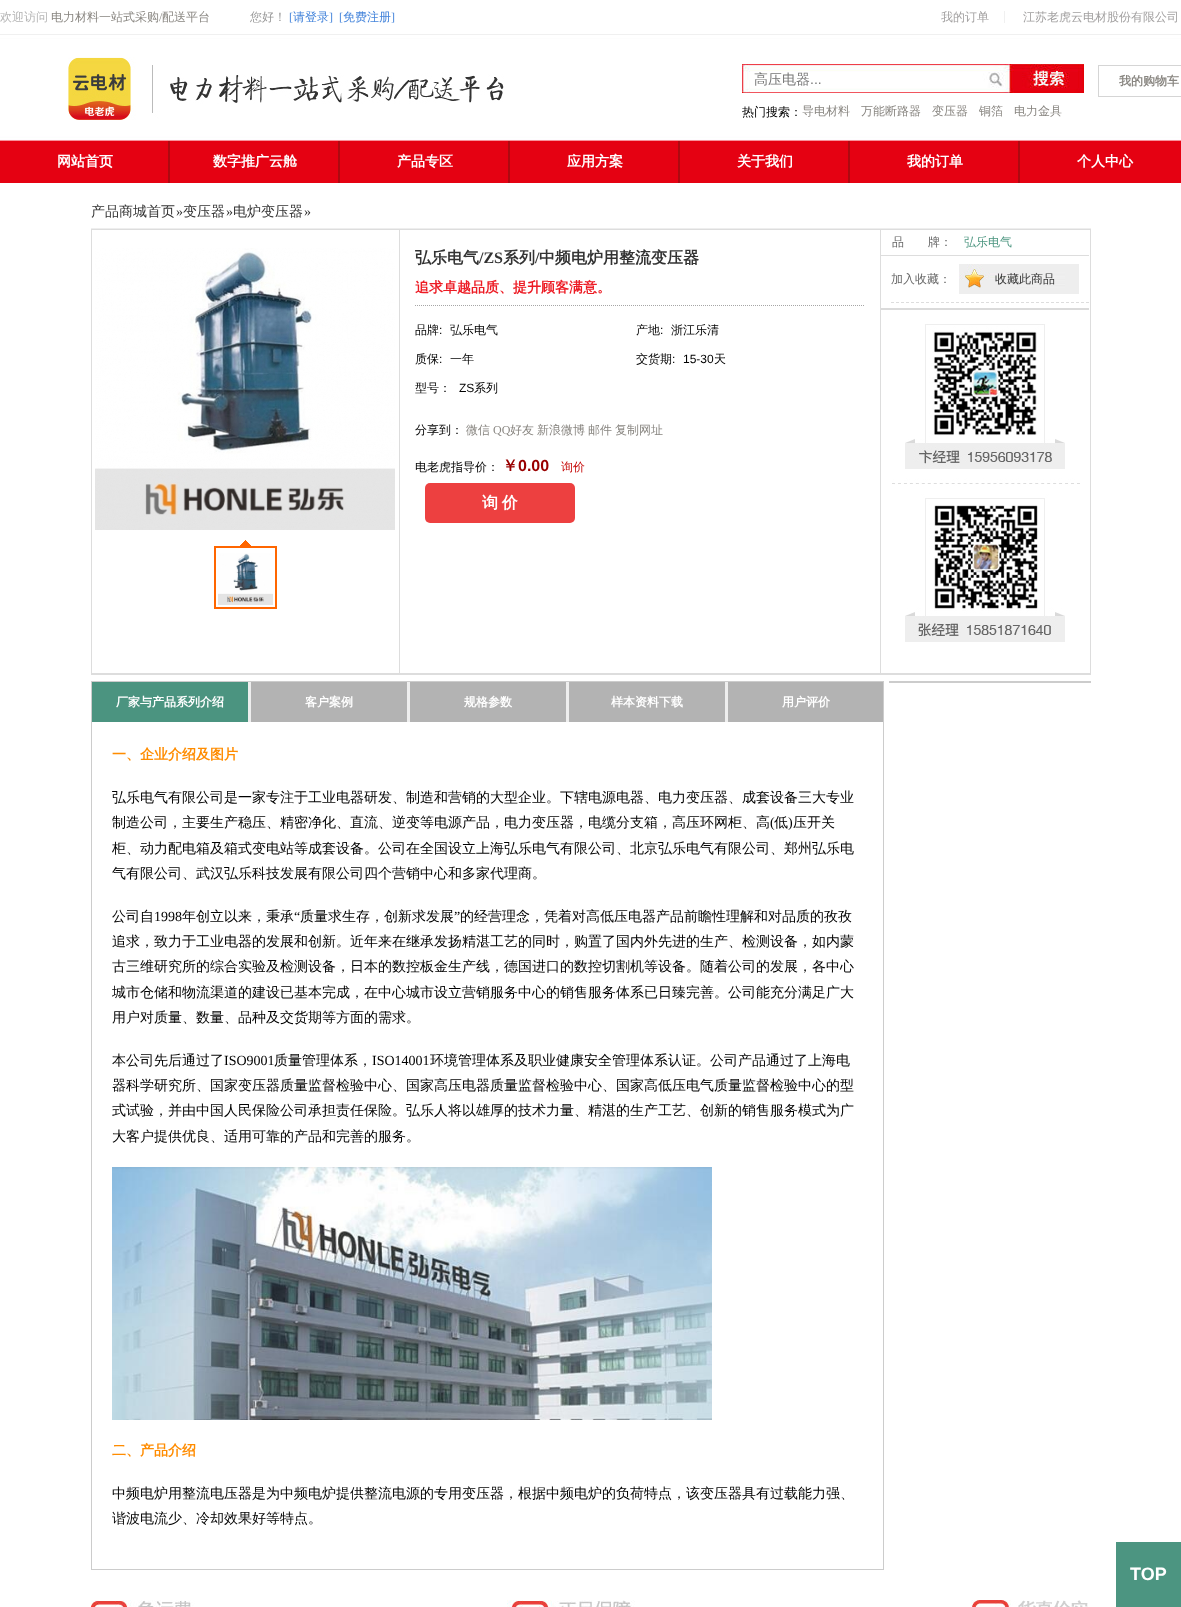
async function draw(canvas) {
	canvas.width = 1181;
	canvas.height = 1607;
	const c = canvas.getContext('2d');
	c.miterLimit = 4;
	c.fontKerning = 'normal';
	async function loadImage(src) {
		const img = new Image();
		img.src = src;
		await img.decode();
		return img;
	}

	c.fillStyle = '#fff';
	c.fillRect(0, 0, 1181, 1607);
	c.drawImage(await loadImage('img1.png'), 0, 34, 1181, 149);
	c.font = '500 12px WenQuanYi Zen Hei';
	c.fillStyle = '#b5b5b5';
	c.fillText('欢迎访问', 0, 21);
	c.fillStyle = '#898681';
	c.fillText('电力材料一站式采购', 51, 21);
	c.font = '12px Liberation Serif';
	c.fillText('/', 159, 21);
	c.font = '500 12px WenQuanYi Zen Hei';
	c.fillText('配送平台', 162, 21);
	c.fillStyle = '#999';
	c.fillText('您好！', 250, 21);
	c.font = '12px Liberation Serif';
	c.fillStyle = '#4484db';
	c.fillText('[', 289, 21);
	c.font = '500 12px WenQuanYi Zen Hei';
	c.fillText('请登录', 293, 21);
	c.font = '12px Liberation Serif';
	c.fillText(']', 329, 21);
	c.fillText('[', 339, 21);
	c.font = '500 12px WenQuanYi Zen Hei';
	c.fillText('免费注册', 343, 21);
	c.font = '12px Liberation Serif';
	c.fillText(']', 391, 21);
	c.fillStyle = '#f0f0f0';
	c.fillRect(1004, 11, 1, 12);
	c.font = '500 12px WenQuanYi Zen Hei';
	c.fillStyle = '#a2a0a0';
	c.fillText('我的订单', 941, 21);
	c.fillText('江苏老虎云电材股份有限公司', 1023, 21);
	c.drawImage(await loadImage('img2.png'), 68, 57, 436, 63);
	c.drawImage(await loadImage('img3.png'), 742, 64, 342, 29);
	c.font = '500 14px WenQuanYi Zen Hei';
	c.fillStyle = '#777';
	c.fillText('高压电器', 754, 84);
	c.font = '14px Liberation Sans';
	c.fillText('...', 810, 84);
	c.font = '500 12px WenQuanYi Zen Hei';
	c.fillStyle = '#000';
	c.fillText('热门搜索：', 742, 116);
	c.fillStyle = '#898681';
	for (const [text, x, y] of [
		['导电材料', 802, 115],
		['万能断路器', 861, 115],
		['变压器', 932, 115],
		['铜箔', 979, 115],
		['电力金具', 1014, 115],
	]) {
		c.fillText(text, x, y);
	}
	c.strokeStyle = '#d5d5d5';
	c.strokeRect(1098.5, 65.5, 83, 31);
	c.font = 'bold 12px WenQuanYi Zen Hei';
	c.fillText('我的购物车', 1119, 85);
	c.fillStyle = '#ae0910';
	c.fillRect(168, 141, 2, 42);
	c.font = 'bold 14px WenQuanYi Zen Hei';
	c.fillStyle = '#fff';
	c.fillText('网站首页', 57, 166);
	c.fillStyle = '#ae0910';
	c.fillRect(338, 141, 2, 42);
	c.fillStyle = '#fff';
	c.fillText('数字推广云舱', 213, 166);
	c.fillStyle = '#ae0910';
	c.fillRect(508, 141, 2, 42);
	c.fillStyle = '#fff';
	c.fillText('产品专区', 397, 166);
	c.fillStyle = '#ae0910';
	c.fillRect(678, 141, 2, 42);
	c.fillStyle = '#fff';
	c.fillText('应用方案', 567, 166);
	c.fillStyle = '#ae0910';
	c.fillRect(848, 141, 2, 42);
	c.fillStyle = '#fff';
	c.fillText('关于我们', 737, 166);
	c.fillStyle = '#ae0910';
	c.fillRect(1018, 141, 2, 42);
	c.fillStyle = '#fff';
	c.fillText('我的订单', 907, 166);
	c.fillText('个人中心', 1077, 166);
	c.fillStyle = '#eee';
	c.fillRect(91, 228, 1000, 1);
	c.font = '500 14px WenQuanYi Zen Hei';
	c.fillStyle = '#333';
	c.fillText('产品商城', 91, 216);
	c.fillText('首页', 147, 216);
	c.font = '14px Liberation Serif';
	c.fillText('»', 176, 216);
	c.font = '500 14px WenQuanYi Zen Hei';
	c.fillText('变压器', 183, 216);
	c.font = '14px Liberation Serif';
	c.fillText('»', 226, 216);
	c.font = '500 14px WenQuanYi Zen Hei';
	c.fillText('电炉变压器', 233, 216);
	c.font = '14px Liberation Serif';
	c.fillText('»', 304, 216);
	c.strokeStyle = '#ddd';
	c.strokeRect(91.5, 229.5, 999, 445);
	c.drawImage(await loadImage('img4.png'), 95, 248, 300, 282);
	c.drawImage(await loadImage('img5.png'), 240, 540, 11, 6);
	c.strokeStyle = '#f60';
	c.lineWidth = 2;
	c.strokeRect(215, 547, 61, 61);
	c.drawImage(await loadImage('img6.png'), 218, 553, 55, 52);
	c.fillStyle = '#ddd';
	c.fillRect(880, 230, 1, 443);
	c.fillRect(399, 230, 1, 443);
	c.font = 'bold 16px WenQuanYi Zen Hei';
	c.fillStyle = '#333';
	c.fillText('弘乐电气', 415, 263);
	c.font = 'bold 16px Liberation Serif';
	c.fillText('/ZS', 479, 263);
	c.font = 'bold 16px WenQuanYi Zen Hei';
	c.fillText('系列', 503, 263);
	c.font = 'bold 16px Liberation Serif';
	c.fillText('/', 535, 263);
	c.font = 'bold 16px WenQuanYi Zen Hei';
	c.fillText('中频电炉用整流变压器', 539, 263);
	c.font = 'bold 14px WenQuanYi Zen Hei';
	c.fillStyle = '#ed1b24';
	c.fillText('追求卓越品质、提升顾客满意。', 415, 292);
	c.beginPath();
	c.moveTo(415, 305.5);
	c.lineTo(865, 305.5);
	c.strokeStyle = '#a6a6a6';
	c.lineWidth = 1;
	c.setLineDash([1, 1]);
	c.stroke();
	c.font = '500 12px WenQuanYi Zen Hei';
	c.fillStyle = '#000';
	c.fillText('品牌', 415, 334);
	c.font = '12px Liberation Sans';
	c.fillText(':', 439, 334);
	c.font = '500 12px WenQuanYi Zen Hei';
	c.fillText('弘乐电气', 450, 334);
	c.fillText('产地', 636, 334);
	c.font = '12px Liberation Sans';
	c.fillText(':', 660, 334);
	c.font = '500 12px WenQuanYi Zen Hei';
	c.fillText('浙江乐清', 671, 334);
	c.fillText('质保', 415, 363);
	c.font = '12px Liberation Sans';
	c.fillText(':', 439, 363);
	c.font = '500 12px WenQuanYi Zen Hei';
	c.fillText('一年', 450, 363);
	c.fillText('交货期', 636, 363);
	c.font = '12px Liberation Sans';
	c.fillText(':', 672, 363);
	c.fillText('15-30', 683, 363);
	c.font = '500 12px WenQuanYi Zen Hei';
	c.fillText('天', 714, 363);
	c.fillText('型号：', 415, 392);
	c.font = '12px Liberation Sans';
	c.fillText('ZS', 459, 392);
	c.font = '500 12px WenQuanYi Zen Hei';
	c.fillText('系列', 474, 392);
	c.fillText('分享到：', 415, 434);
	c.fillStyle = '#898681';
	c.fillText('微信', 466, 434);
	c.font = '12px Liberation Serif';
	c.fillText('QQ', 493, 434);
	c.font = '500 12px WenQuanYi Zen Hei';
	for (const [text, x, y] of [
		['好友', 510, 434],
		['新浪微博', 537, 434],
		['邮件', 588, 434],
		['复制网址', 615, 434],
	]) {
		c.fillText(text, x, y);
	}
	c.fillStyle = '#000';
	c.fillText('电老虎指导价：', 415, 471);
	c.font = 'bold 16px WenQuanYi Zen Hei';
	c.fillStyle = '#900';
	c.fillText('￥', 502, 471);
	c.font = 'bold 16px Liberation Sans';
	c.fillText('0.00', 518, 471);
	c.font = '500 12px WenQuanYi Zen Hei';
	c.fillStyle = '#c50605';
	c.fillText('询价', 561, 471);
	c.fillStyle = '#ed4040';
	c.beginPath();
	c.roundRect(425, 483, 150, 40, 5);
	c.fill();
	c.wordSpacing = '-1px';
	c.font = 'bold 16px WenQuanYi Zen Hei';
	c.fillStyle = '#fff';
	c.fillText('询 价', 482, 508);
	c.fillStyle = '#ddd';
	c.fillRect(881, 255, 208, 1);
	c.wordSpacing = '0px';
	c.font = '500 12px WenQuanYi Zen Hei';
	c.fillStyle = '#666';
	c.fillText('品　　牌：', 892, 246);
	c.fillStyle = '#4b957f';
	c.fillText('弘乐电气', 964, 246);
	c.drawImage(await loadImage('img7.png'), 959, 264, 120, 30);
	c.save();
	c.beginPath();
	c.rect(91, 229, 1000, 1341);
	c.clip();
	c.beginPath();
	c.moveTo(891, 302.5);
	c.lineTo(1099, 302.5);
	c.strokeStyle = '#ddd';
	c.setLineDash([3, 2]);
	c.stroke();
	c.restore();
	c.fillStyle = '#666';
	c.fillText('加入收藏：', 891, 283);
	c.fillStyle = '#333';
	c.fillText('收藏此商品', 995, 283);
	c.fillStyle = '#dadada';
	c.fillRect(881, 308, 208, 2);
	c.drawImage(await loadImage('img8.png'), 892, 324, 188, 318);
	c.fillStyle = '#ddd';
	c.fillRect(92, 673, 998, 1);
	c.fillStyle = '#ccc';
	c.fillRect(889, 681, 202, 2);
	c.strokeStyle = '#ccc';
	c.setLineDash([]);
	c.strokeRect(91.5, 681.5, 792, 888);
	c.fillStyle = '#eee';
	c.fillRect(248, 682, 480, 40);
	c.fillStyle = '#4b9480';
	c.fillRect(92, 682, 156, 40);
	c.font = 'bold 12px WenQuanYi Zen Hei';
	c.fillStyle = '#fff';
	c.fillText('厂家与产品系列介绍', 116, 706);
	c.fillStyle = '#b3b3b3';
	c.fillRect(251, 682, 156, 40);
	c.fillStyle = '#fff';
	c.fillText('客户案例', 305, 706);
	c.fillStyle = '#b3b3b3';
	c.fillRect(410, 682, 156, 40);
	c.fillStyle = '#fff';
	c.fillText('规格参数', 464, 706);
	c.fillStyle = '#b3b3b3';
	c.fillRect(569, 682, 156, 40);
	c.fillStyle = '#fff';
	c.fillText('样本资料下载', 611, 706);
	c.fillStyle = '#b3b3b3';
	c.fillRect(728, 682, 155, 40);
	c.fillStyle = '#fff';
	c.fillText('用户评价', 782, 706);
	c.font = 'bold 14px WenQuanYi Zen Hei';
	c.fillStyle = '#ff8c00';
	c.fillText('一、企业介绍及图片', 112, 759);
	c.font = '500 14px WenQuanYi Zen Hei';
	c.fillStyle = '#000';
	c.fillText('弘乐电气有限公司是一家专注于工业电器研发、制造和营销的大型企业。下辖电源电器、电力变压器、成套设备三大专业', 112, 802);
	c.fillText('制造公司，主要生产稳压、精密净化、直流、逆变等电源产品，电力变压器，电缆分支箱，高压环网柜、高', 112, 827);
	c.font = '14px Liberation Serif';
	c.fillText('(', 770, 827);
	c.font = '500 14px WenQuanYi Zen Hei';
	c.fillText('低', 774, 827);
	c.font = '14px Liberation Serif';
	c.fillText(')', 788, 827);
	c.font = '500 14px WenQuanYi Zen Hei';
	for (const [text, x, y] of [
		['压开关', 793, 827],
		['柜、动力配电箱及箱式变电站等成套设备。公司在全国设立上海弘乐电气有限公司、北京弘乐电气有限公司、郑州弘乐电', 112, 853],
		['气有限公司、武汉弘乐科技发展有限公司四个营销中心和多家代理商。', 112, 878],
		['公司自', 112, 921],
	]) {
		c.fillText(text, x, y);
	}
	c.font = '14px Liberation Serif';
	c.fillText('1998', 154, 921);
	c.font = '500 14px WenQuanYi Zen Hei';
	c.fillText('年创立以来，秉承', 182, 921);
	c.font = '14px Liberation Serif';
	c.fillText('“', 294, 921);
	c.font = '500 14px WenQuanYi Zen Hei';
	c.fillText('质量求生存，创新求发展', 300, 921);
	c.font = '14px Liberation Serif';
	c.fillText('”', 454, 921);
	c.font = '500 14px WenQuanYi Zen Hei';
	for (const [text, x, y] of [
		['的经营理念，凭着对高低压电器产品前瞻性理解和对品质的孜孜', 460, 921],
		['追求，致力于工业电器的发展和创新。近年来在继承发扬精湛工艺的同时，购置了国内外先进的生产、检测设备，如内蒙', 112, 946],
		['古三维研究所的综合实验及检测设备，日本的数控板金生产线，德国进口的数控切割机等设备。随着公司的发展，各中心', 112, 971],
		['城市仓储和物流渠道的建设已基本完成，在中心城市设立营销服务中心的销售服务体系已日臻完善。公司能充分满足广大', 112, 997],
		['用户对质量、数量、品种及交货期等方面的需求。', 112, 1022],
		['本公司先后通过了', 112, 1065],
	]) {
		c.fillText(text, x, y);
	}
	c.font = '14px Liberation Serif';
	c.fillText('ISO9001', 224, 1065);
	c.font = '500 14px WenQuanYi Zen Hei';
	c.fillText('质量管理体系，', 274, 1065);
	c.font = '14px Liberation Serif';
	c.fillText('ISO14001', 372, 1065);
	c.font = '500 14px WenQuanYi Zen Hei';
	for (const [text, x, y] of [
		['环境管理体系及职业健康安全管理体系认证。公司产品通过了上海电', 430, 1065],
		['器科学研究所、国家变压器质量监督检验中心、国家高压电器质量监督检验中心、国家高低压电气质量监督检验中心的型', 112, 1090],
		['式试验，并由中国人民保险公司承担责任保险。弘乐人将以雄厚的技术力量、精湛的生产工艺、创新的销售服务模式为广', 112, 1115],
		['大客户提供优良、适用可靠的产品和完善的服务。', 112, 1141],
	]) {
		c.fillText(text, x, y);
	}
	c.drawImage(await loadImage('img9.png'), 112, 1167, 600, 253);
	c.font = 'bold 14px WenQuanYi Zen Hei';
	c.fillStyle = '#ff8c00';
	c.fillText('二、产品介绍', 112, 1455);
	c.font = '500 14px WenQuanYi Zen Hei';
	c.fillStyle = '#000';
	c.fillText('中频电炉用整流电压器是为中频电炉提供整流电源的专用变压器，根据中频电炉的负荷特点，该变压器具有过载能力强、', 112, 1498);
	c.fillText('谐波电流少、冷却效果好等特点。', 112, 1523);
	c.fillStyle = '#4c9581';
	c.fillRect(1116, 1542, 65, 65);
	c.font = 'bold 18px Liberation Sans';
	c.fillStyle = '#fff';
	c.fillText('TOP', 1130, 1580);
	c.drawImage(await loadImage('img10.png'), 91, 1600, 997, 7);
}

draw(document.querySelector('canvas'));
